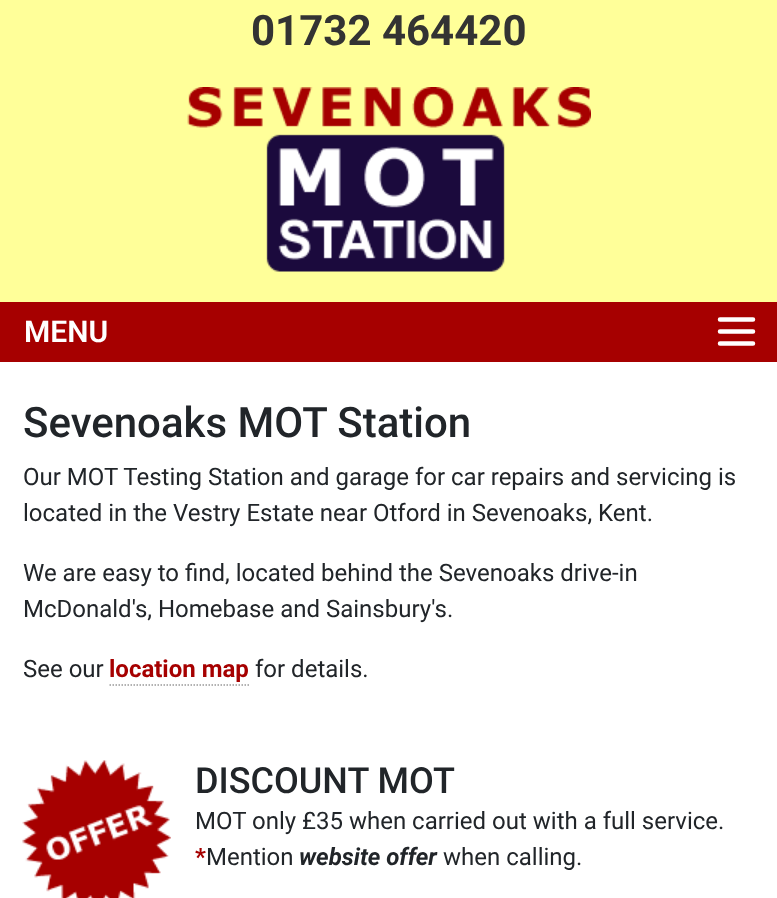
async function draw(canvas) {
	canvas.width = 777;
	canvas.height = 898;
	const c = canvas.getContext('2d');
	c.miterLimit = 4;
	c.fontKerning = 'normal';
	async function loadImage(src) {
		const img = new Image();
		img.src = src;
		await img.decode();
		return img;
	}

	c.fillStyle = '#fff';
	c.fillRect(0, 0, 777, 898);
	c.fillStyle = '#ff9';
	c.fillRect(0, 0, 777, 302);
	c.font = 'bold 42px Roboto';
	c.fillStyle = '#333';
	c.fillText('01732 464420', 251, 45);
	c.drawImage(await loadImage('img1.png'), 187, 87, 404, 185);
	c.fillStyle = '#a60000';
	c.fillRect(0, 302, 777, 60);
	c.font = '600 30px Roboto';
	c.fillStyle = '#fff';
	c.fillText('MENU', 24, 342);
	c.beginPath();
	c.moveTo(720, 319.5);
	c.lineTo(753, 319.5);
	c.moveTo(720, 331.5);
	c.lineTo(753, 331.5);
	c.moveTo(720, 343.5);
	c.lineTo(753, 343.5);
	c.strokeStyle = '#fff';
	c.lineWidth = 4.5;
	c.lineCap = 'round';
	c.stroke();
	c.font = '500 42px Roboto';
	c.fillStyle = '#212529';
	c.fillText('Sevenoaks MOT Station', 23, 437);
	c.font = '24px Roboto';
	for (const [text, x, y] of [
		['Our MOT Testing Station and garage for car repairs and servicing is', 23, 485],
		['located in the Vestry Estate near Otford in Sevenoaks, Kent.', 23, 521],
		['We are easy to find, located behind the Sevenoaks drive-in', 23, 581],
		['McDonald\'s, Homebase and Sainsbury\'s.', 23, 617],
		['See our', 23, 677],
	]) {
		c.fillText(text, x, y);
	}
	c.font = 'bold 24px Roboto';
	c.fillStyle = '#a60000';
	c.fillText('location map', 109, 677);
	c.beginPath();
	c.moveTo(109.5, 685);
	c.lineTo(249, 685);
	c.strokeStyle = '#999';
	c.lineWidth = 1.5;
	c.lineCap = 'butt';
	c.setLineDash([1.5, 1.5]);
	c.stroke();
	c.font = '24px Roboto';
	c.fillStyle = '#212529';
	c.fillText('for details.', 255, 677);
	c.drawImage(await loadImage('img2.png'), 22, 760, 149, 138);
	c.font = '500 36px Roboto';
	c.fillText('DISCOUNT MOT', 195, 793);
	c.font = '24px Roboto';
	c.fillText('MOT only £35 when carried out with a full service.', 195, 829);
	c.font = 'bold 24px Roboto';
	c.fillStyle = '#a60000';
	c.fillText('*', 195, 865);
	c.font = '24px Roboto';
	c.fillStyle = '#212529';
	c.fillText('Mention', 206, 865);
	c.font = 'italic bold 24px Roboto';
	c.fillText('website offer', 299, 865);
	c.font = '24px Roboto';
	c.fillText('when calling.', 443, 865);
}

draw(document.querySelector('canvas'));
